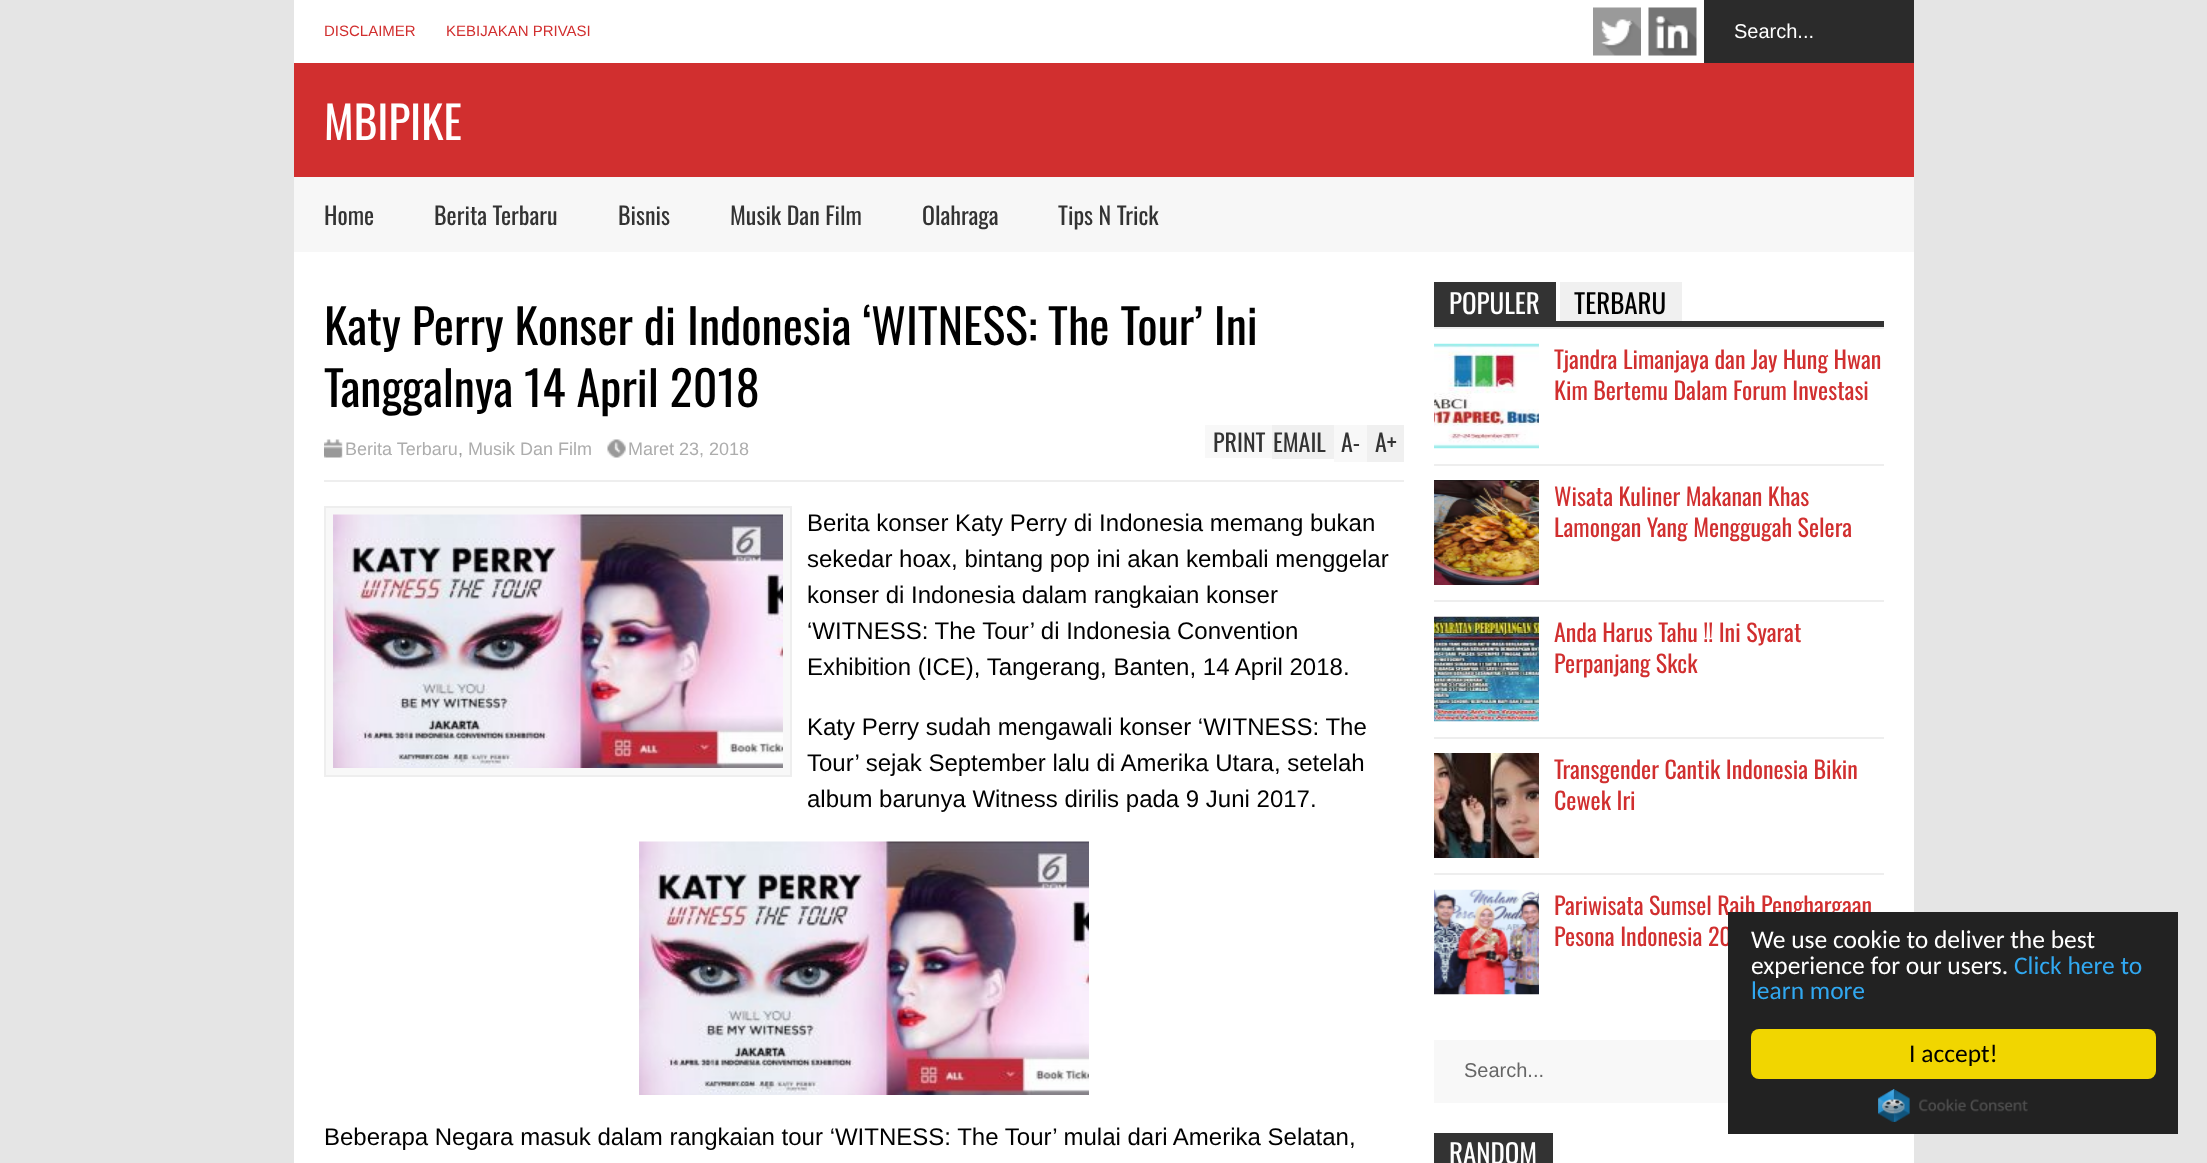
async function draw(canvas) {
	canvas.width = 2207;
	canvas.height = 1163;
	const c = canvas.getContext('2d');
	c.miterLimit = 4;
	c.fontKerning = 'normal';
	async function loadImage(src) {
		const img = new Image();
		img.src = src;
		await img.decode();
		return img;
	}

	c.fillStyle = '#e5e5e5';
	c.fillRect(0, 0, 2207, 1163);
	c.fillStyle = '#fff';
	c.fillRect(294, 0, 1620, 1163);
	c.font = '15px Liberation Sans';
	c.fillStyle = '#d12f2f';
	c.fillText('DISCLAIMER', 324, 36);
	c.fillText('KEBIJAKAN PRIVASI', 446, 36);
	c.drawImage(await loadImage('img1.png'), 1593, 7, 48, 49);
	c.drawImage(await loadImage('img2.png'), 1648, 7, 49, 49);
	c.fillStyle = '#2b2b2b';
	c.fillRect(1704, 0, 210, 63);
	c.font = '20px Liberation Sans';
	c.fillStyle = '#fff';
	c.fillText('Search...', 1734, 38);
	c.fillStyle = '#d12f2f';
	c.fillRect(294, 63, 1620, 114);
	c.font = '45px Oswald';
	c.fillStyle = '#fff';
	c.fillText('MBIPIKE', 324, 140);
	c.fillStyle = '#f7f7f7';
	c.fillRect(294, 177, 1620, 75);
	c.font = '24px Oswald';
	c.fillStyle = '#333';
	for (const [text, x, y] of [
		['Home', 324, 225],
		['Berita Terbaru', 434, 225],
		['Bisnis', 618, 225],
		['Musik Dan Film', 730, 225],
		['Olahraga', 922, 225],
		['Tips N Trick', 1058, 225],
	]) {
		c.fillText(text, x, y);
	}
	c.font = '48px Oswald';
	c.fillStyle = '#000';
	c.fillText('Katy Perry Konser di Indonesia ‘WITNESS: The Tour’ Ini', 324, 345);
	c.fillText('Tanggalnya 14 April 2018', 324, 407);
	c.fillStyle = '#eee';
	c.fillRect(324, 480, 1080, 2);
	c.drawImage(await loadImage('img3.png'), 324, 439, 19, 19);
	c.font = '18px Liberation Sans';
	c.fillStyle = '#adadad';
	c.fillText('Berita Terbaru', 345, 455);
	c.fillStyle = '#999';
	c.fillText(',', 458, 455);
	c.fillStyle = '#adadad';
	c.fillText('Musik Dan Film', 468, 455);
	c.drawImage(await loadImage('img4.png'), 607, 439, 19, 19);
	c.fillText('Maret 23, 2018', 628, 455);
	c.fillStyle = '#f8f8f8';
	c.fillRect(1205, 425, 67, 33);
	c.font = '24px Oswald';
	c.fillStyle = '#333';
	c.fillText('PRINT', 1213, 452);
	c.fillStyle = '#f0f0f0';
	c.fillRect(1272, 425, 62, 34);
	c.fillStyle = '#333';
	c.fillText('EMAIL', 1273, 452);
	c.fillStyle = '#f8f8f8';
	c.fillRect(1334, 425, 33, 37);
	c.fillStyle = '#333';
	c.fillText('A-', 1341, 452);
	c.fillStyle = '#f0f0f0';
	c.fillRect(1367, 425, 37, 37);
	c.fillStyle = '#333';
	c.fillText('A+', 1375, 452);
	c.fillStyle = '#f8f8f8';
	c.beginPath();
	c.rect(325, 507, 466, 269);
	c.fill();
	c.strokeStyle = '#eee';
	c.lineWidth = 2;
	c.stroke();
	c.drawImage(await loadImage('img5.png'), 333, 514, 450, 254);
	c.font = '24px Liberation Sans';
	c.fillStyle = '#000';
	for (const [text, x, y] of [
		['Berita konser Katy Perry di Indonesia memang bukan', 807, 531],
		['sekedar hoax, bintang pop ini akan kembali menggelar', 807, 567],
		['konser di Indonesia dalam rangkaian konser', 807, 603],
		['‘WITNESS: The Tour’ di Indonesia Convention', 807, 639],
		['Exhibition (ICE), Tangerang, Banten, 14 April 2018.', 807, 675],
		['Katy Perry sudah mengawali konser ‘WITNESS: The', 807, 735],
		['Tour’ sejak September lalu di Amerika Utara, setelah', 807, 771],
		['album barunya Witness dirilis pada 9 Juni 2017.', 807, 807],
	]) {
		c.fillText(text, x, y);
	}
	c.drawImage(await loadImage('img6.png'), 639, 841, 450, 254);
	c.fillText('Beberapa Negara masuk dalam rangkaian tour ‘WITNESS: The Tour’ mulai dari Amerika Selatan,', 324, 1145);
	c.fillStyle = '#333';
	c.fillRect(1434, 321, 450, 6);
	c.fillRect(1434, 282, 122, 39);
	c.font = '27px Oswald';
	c.fillStyle = '#fff';
	c.fillText('POPULER', 1449, 314);
	c.fillStyle = '#f0f0f0';
	c.fillRect(1560, 282, 122, 39);
	c.fillStyle = '#000';
	c.fillText('TERBARU', 1574, 314);
	c.fillStyle = '#eee';
	c.fillRect(1434, 327, 450, 2);
	c.drawImage(await loadImage('img7.png'), 1434, 343, 105, 106);
	c.font = '24px Oswald';
	c.fillStyle = '#d12f2f';
	c.fillText('Tjandra Limanjaya dan Jay Hung Hwan', 1554, 369);
	c.fillText('Kim Bertemu Dalam Forum Investasi', 1554, 400);
	c.fillStyle = '#eee';
	c.fillRect(1434, 464, 450, 2);
	c.drawImage(await loadImage('img8.png'), 1434, 480, 105, 105);
	c.fillStyle = '#d12f2f';
	c.fillText('Wisata Kuliner Makanan Khas', 1554, 506);
	c.fillText('Lamongan Yang Menggugah Selera', 1554, 537);
	c.fillStyle = '#eee';
	c.fillRect(1434, 600, 450, 2);
	c.drawImage(await loadImage('img9.png'), 1434, 616, 105, 106);
	c.fillStyle = '#d12f2f';
	c.fillText('Anda Harus Tahu !! Ini Syarat', 1554, 642);
	c.fillText('Perpanjang Skck', 1554, 673);
	c.fillStyle = '#eee';
	c.fillRect(1434, 737, 450, 2);
	c.drawImage(await loadImage('img10.png'), 1434, 753, 105, 105);
	c.fillStyle = '#d12f2f';
	c.fillText('Transgender Cantik Indonesia Bikin', 1554, 779);
	c.fillText('Cewek Iri', 1554, 810);
	c.fillStyle = '#eee';
	c.fillRect(1434, 873, 450, 2);
	c.drawImage(await loadImage('img11.png'), 1434, 889, 105, 106);
	c.fillStyle = '#d12f2f';
	c.fillText('Pariwisata Sumsel Raih Penghargaan', 1554, 915);
	c.fillText('Pesona Indonesia 20', 1554, 946);
	c.fillStyle = '#f8f8f8';
	c.fillRect(1434, 1040, 294, 63);
	c.font = '20px Liberation Sans';
	c.fillStyle = '#666';
	c.fillText('Search...', 1464, 1077);
	c.fillStyle = '#333';
	c.fillRect(1434, 1133, 119, 30);
	c.font = '27px Oswald';
	c.fillStyle = '#fff';
	c.fillText('RANDOM', 1449, 1164);
	c.fillStyle = '#222';
	c.fillRect(1728, 912, 450, 222);
	c.font = '25.5px Carlito';
	c.fillStyle = '#fff';
	c.fillText('We use cookie to deliver the best', 1751, 948);
	c.fillText('experience for our users.', 1751, 974);
	c.fillStyle = '#31a8f0';
	c.fillText('Click here to', 2014, 974);
	c.fillText('learn more', 1751, 999);
	c.fillStyle = '#f1d600';
	c.beginPath();
	c.roundRect(1751, 1029, 405, 50, 8);
	c.fill();
	c.fillStyle = '#000';
	c.fillText('I accept!', 1909, 1062);
	c.drawImage(await loadImage('img12.png'), 1878, 1089, 150, 33);
}

draw(document.querySelector('canvas'));
